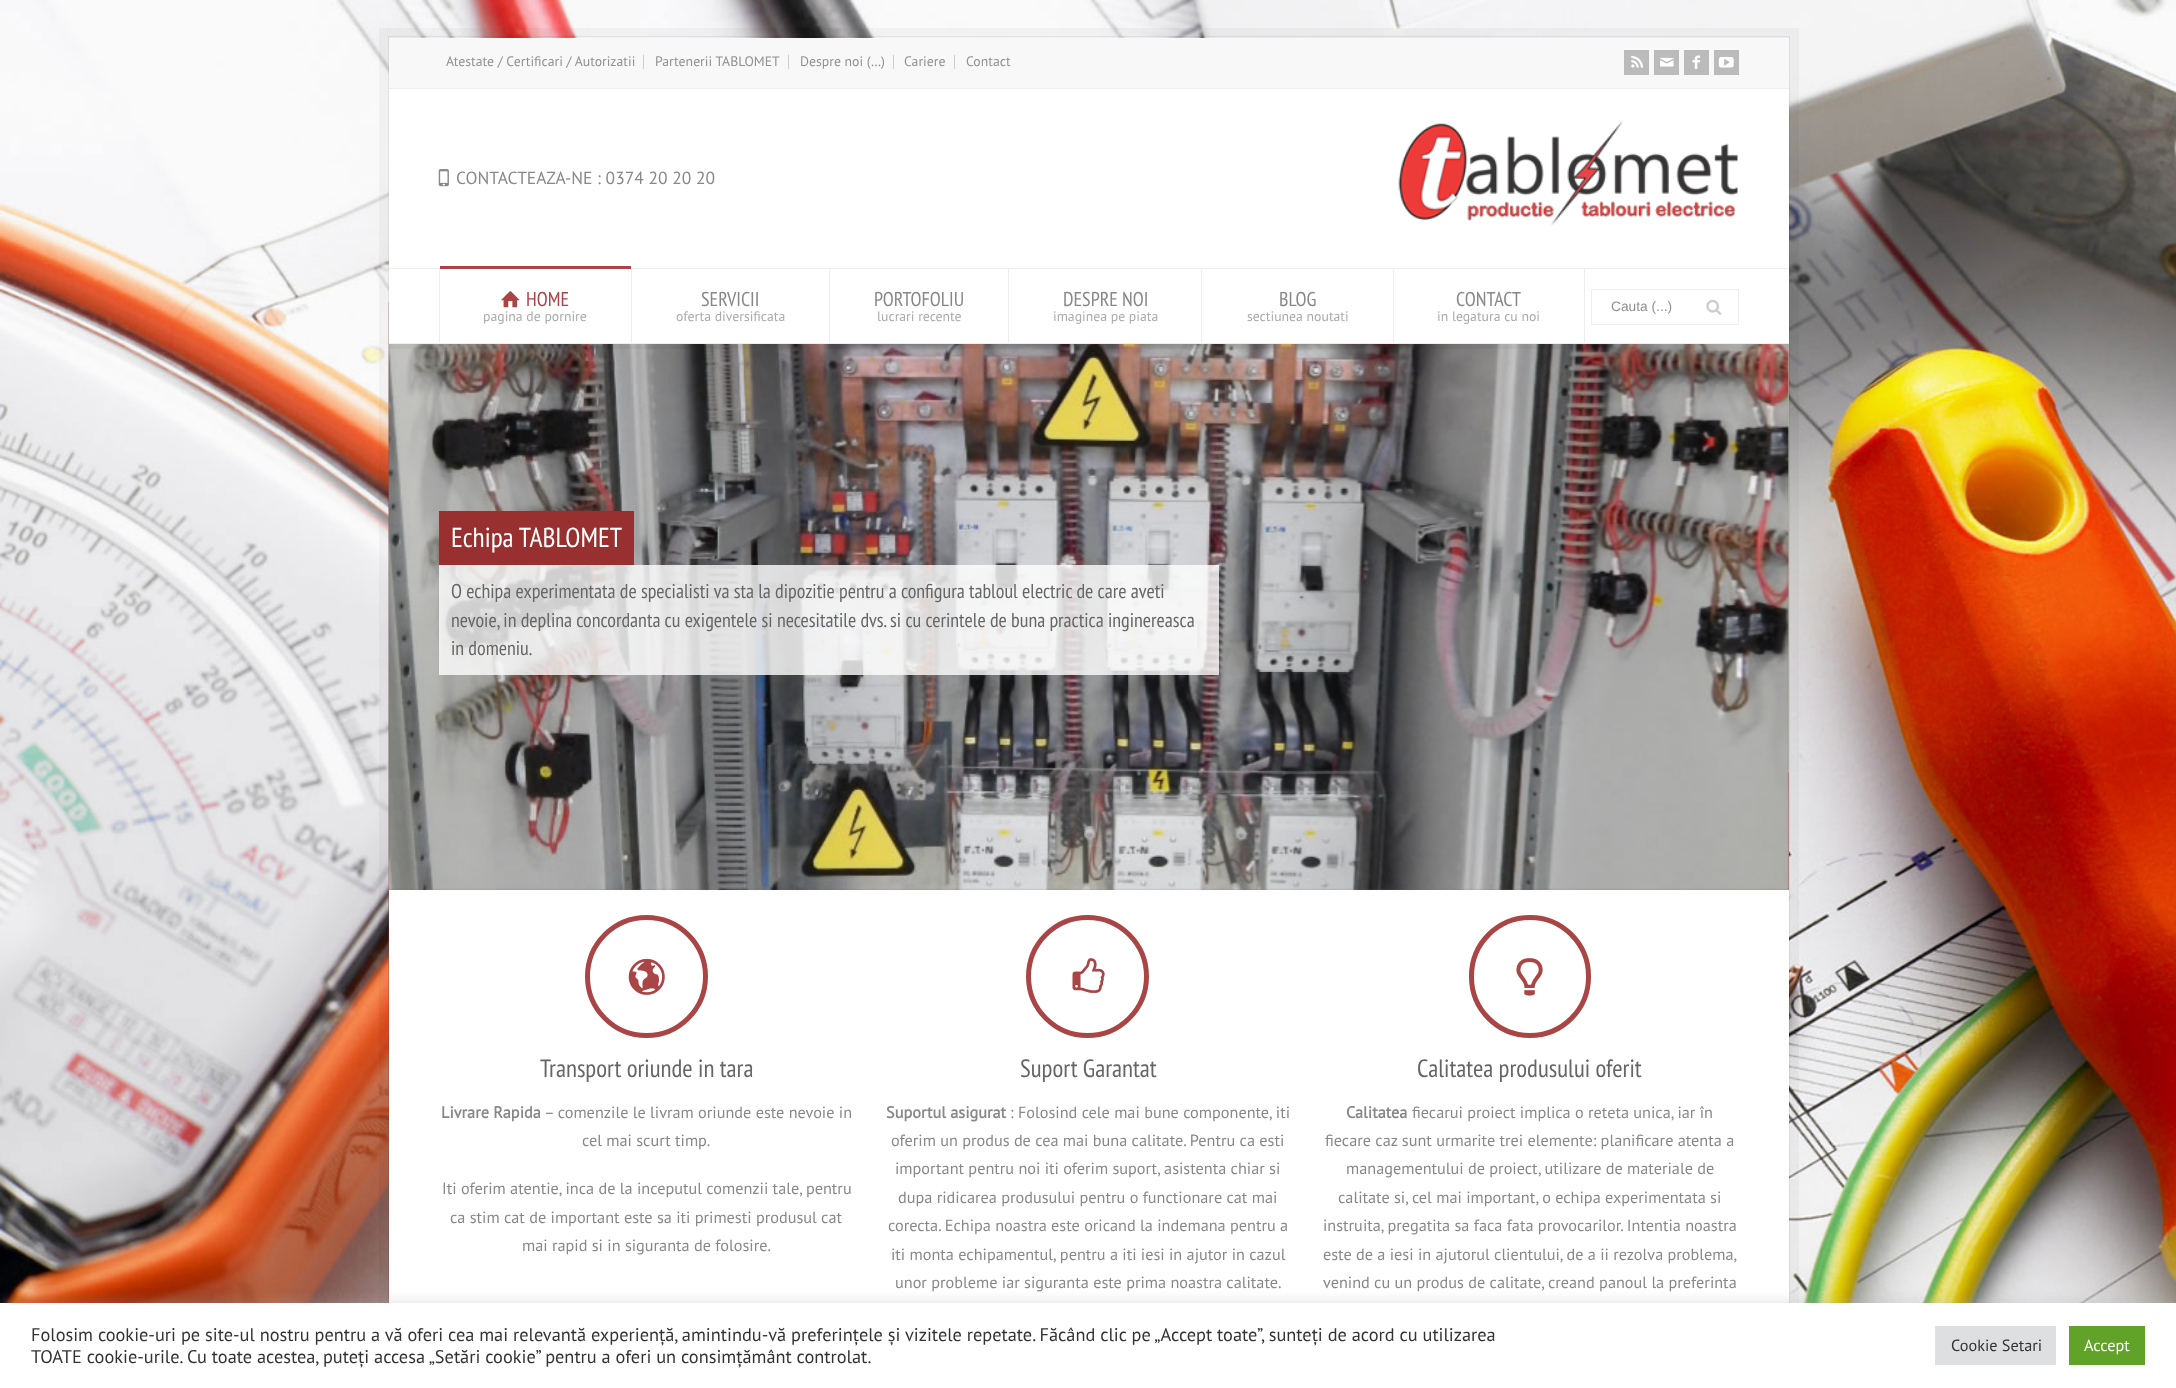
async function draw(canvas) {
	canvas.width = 2176;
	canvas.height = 1388;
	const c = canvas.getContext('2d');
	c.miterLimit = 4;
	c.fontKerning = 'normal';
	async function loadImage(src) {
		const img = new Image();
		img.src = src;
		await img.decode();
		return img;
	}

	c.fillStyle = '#fff';
	c.fillRect(0, 0, 2176, 1388);
	c.drawImage(await loadImage('img1.png'), 0, 0, 2176, 1303);
	c.strokeStyle = '#0404040f';
	c.strokeRect(388.5, 36.5, 1401, 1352);
	c.strokeStyle = '#00000008';
	c.lineWidth = 10;
	c.strokeRect(384, 33, 1410, 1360);
	for (const [x, y, w, h, color] of [
		[389, 38, 1400, 50, '#f8f8f8'],
		[389, 88, 1400, 1, '#eee'],
		[643, 55, 1, 14, '#cdcdcd'],
	]) {
		c.fillStyle = color;
		c.fillRect(x, y, w, h);
	}
	c.font = '13.75px PT Sans';
	c.fillStyle = '#919191';
	c.fillText('Atestate / Certificari / Autorizatii', 446, 66);
	c.fillStyle = '#cdcdcd';
	c.fillRect(788, 55, 1, 14);
	c.fillStyle = '#919191';
	c.fillText('Partenerii TABLOMET', 655, 66);
	c.fillStyle = '#cdcdcd';
	c.fillRect(893, 55, 1, 14);
	c.fillStyle = '#919191';
	c.fillText('Despre noi (…)', 800, 66);
	c.fillStyle = '#cdcdcd';
	c.fillRect(954, 55, 1, 14);
	c.fillStyle = '#919191';
	c.fillText('Cariere', 904, 66);
	c.fillText('Contact', 966, 66);
	c.fillStyle = '#bbb';
	c.fillRect(1624, 50, 25, 25);
	c.drawImage(await loadImage('img2.png'), 1631, 55, 12, 13);
	c.fillRect(1654, 50, 25, 25);
	c.drawImage(await loadImage('img3.png'), 1660, 57, 14, 10);
	c.fillRect(1684, 50, 25, 25);
	c.drawImage(await loadImage('img4.png'), 1692, 55, 8, 14);
	c.fillRect(1714, 50, 25, 25);
	c.drawImage(await loadImage('img5.png'), 1718, 56, 16, 12);
	c.fillStyle = '#fff';
	c.fillRect(389, 89, 1400, 179);
	c.drawImage(await loadImage('img6.png'), 438, 169, 11, 18);
	c.font = '17.5px PT Sans';
	c.fillStyle = '#888';
	c.fillText('CONTACTEAZA-NE : 0374 20 20 20', 456, 184);
	c.drawImage(await loadImage('img7.png'), 1398, 121, 340, 105);
	c.fillStyle = '#aa4b4d';
	c.fillRect(389, 344, 1400, 546);
	c.drawImage(await loadImage('img10.png'), 388, 302, 1, 588);
	c.drawImage(await loadImage('img11.png'), 388, 302, 1401, 588);
	c.drawImage(await loadImage('img12.png'), 1788, 344, 1, 429);
	c.fillStyle = '#0000000a';
	c.beginPath();
	c.moveTo(389, 344);
	c.lineTo(389, 349);
	c.lineTo(1789, 349);
	c.lineTo(1789, 273);
	c.lineTo(1789, 344);
	c.closePath();
	c.fill();
	for (const [x, y, w, h, color] of [
		[389, 269, 1400, 74, '#fff'],
		[389, 268, 1400, 1, '#eee'],
		[389, 343, 1400, 1, '#eee'],
		[631, 269, 1, 74, '#eee'],
		[439, 269, 1, 74, '#eee'],
		[440, 266, 191, 3, '#a94545'],
	]) {
		c.fillStyle = color;
		c.fillRect(x, y, w, h);
	}
	c.drawImage(await loadImage('img8.png'), 501, 291, 19, 17);
	c.font = '20px PT Sans Narrow';
	c.fillText('HOME', 526, 306);
	c.font = '13.75px PT Sans';
	c.fillStyle = '#aaa';
	c.fillText('pagina de pornire', 483, 321);
	c.fillStyle = '#eee';
	c.fillRect(829, 269, 1, 74);
	c.font = '20px PT Sans Narrow';
	c.fillStyle = '#888';
	c.fillText('SERVICII', 701, 306);
	c.font = '13.75px PT Sans';
	c.fillStyle = '#aaa';
	c.fillText('oferta diversificata', 676, 321);
	c.fillStyle = '#eee';
	c.fillRect(1008, 269, 1, 74);
	c.font = '20px PT Sans Narrow';
	c.fillStyle = '#888';
	c.fillText('PORTOFOLIU', 874, 306);
	c.font = '13.75px PT Sans';
	c.fillStyle = '#aaa';
	c.fillText('lucrari recente', 877, 321);
	c.fillStyle = '#eee';
	c.fillRect(1201, 269, 1, 74);
	c.font = '20px PT Sans Narrow';
	c.fillStyle = '#888';
	c.fillText('DESPRE NOI', 1063, 306);
	c.font = '13.75px PT Sans';
	c.fillStyle = '#aaa';
	c.fillText('imaginea pe piata', 1053, 321);
	c.fillStyle = '#eee';
	c.fillRect(1393, 269, 1, 74);
	c.font = '20px PT Sans Narrow';
	c.fillStyle = '#888';
	c.fillText('BLOG', 1279, 306);
	c.font = '13.75px PT Sans';
	c.fillStyle = '#aaa';
	c.fillText('sectiunea noutati', 1247, 321);
	c.fillStyle = '#eee';
	c.fillRect(1584, 269, 1, 74);
	c.font = '20px PT Sans Narrow';
	c.fillStyle = '#888';
	c.fillText('CONTACT', 1456, 306);
	c.font = '13.75px PT Sans';
	c.fillStyle = '#aaa';
	c.fillText('in legatura cu noi', 1437, 321);
	c.strokeStyle = '#eee';
	c.lineWidth = 1;
	c.strokeRect(1591.5, 289.5, 147, 35);
	c.font = '13.75px Liberation Sans';
	c.fillStyle = '#919191';
	c.fillText('Cauta (...)', 1611, 311);
	c.drawImage(await loadImage('img9.png'), 1706, 299, 16, 16);
	c.fillStyle = '#993030';
	c.fillRect(439, 511, 195, 54);
	c.font = '27.5px PT Sans Narrow';
	c.fillStyle = '#fff';
	c.fillText('Echipa TABLOMET', 451, 547);
	c.fillStyle = '#ffffffcc';
	c.fillRect(439, 565, 780, 110);
	c.font = '20px PT Sans Narrow';
	c.fillStyle = '#666';
	for (const [text, x, y] of [
		['O echipa experimentata de specialisti va sta la dipozitie pentru a configura tabloul electric de care aveti', 451, 598],
		['nevoie, in deplina concordanta cu exigentele si necesitatile dvs. si cu cerintele de buna practica inginereasca', 451, 627],
		['in domeniu.', 451, 655],
	]) {
		c.fillText(text, x, y);
	}
	c.drawImage(await loadImage('img13.png'), 388, 890, 1, 413);
	c.fillStyle = '#fff';
	c.fillRect(389, 890, 1400, 413);
	c.beginPath();
	c.arc(646.5, 976.5, 59, 0, 2 * Math.PI);
	c.strokeStyle = '#a94545';
	c.lineWidth = 5;
	c.stroke();
	c.drawImage(await loadImage('img14.png'), 628, 958, 37, 37);
	c.font = '25px PT Sans Narrow';
	c.fillStyle = '#666';
	c.fillText('Transport oriunde in tara', 540, 1077);
	c.font = 'bold 16.25px PT Sans';
	c.fillStyle = '#888';
	c.fillText('Livrare Rapida', 441, 1118);
	c.font = '16.25px PT Sans';
	for (const [text, x, y] of [
		['– comenzile le livram oriunde este nevoie in', 544, 1118],
		['cel mai scurt timp.', 582, 1146],
		['Iti oferim atentie, inca de la inceputul comenzii tale, pentru', 442, 1194],
		['ca stim cat de important este sa iti primesti produsul cat', 450, 1223],
		['mai rapid si in siguranta de folosire.', 522, 1251],
	]) {
		c.fillText(text, x, y);
	}
	c.beginPath();
	c.arc(1087.5, 976.5, 59, 0, 2 * Math.PI);
	c.stroke();
	c.drawImage(await loadImage('img15.png'), 1072, 958, 33, 35);
	c.font = '25px PT Sans Narrow';
	c.fillStyle = '#666';
	c.fillText('Suport Garantat', 1020, 1077);
	c.font = 'bold 16.25px PT Sans';
	c.fillStyle = '#888';
	c.fillText('Suportul asigurat', 886, 1118);
	c.font = '16.25px PT Sans';
	for (const [text, x, y] of [
		[': Folosind cele mai bune componente, iti', 1010, 1118],
		['oferim un produs de cea mai buna calitate. Pentru ca esti', 891, 1146],
		['important pentru noi iti oferim suport, asistenta chiar si', 895, 1174],
		['dupa ridicarea produsului pentru o functionare cat mai', 898, 1203],
		['corecta. Echipa noastra este oricand la indemana pentru a', 888, 1231],
		['iti monta echipamentul, pentru a iti iesi in ajutor in cazul', 891, 1260],
		['unor probleme iar siguranta este prima noastra calitate.', 895, 1288],
	]) {
		c.fillText(text, x, y);
	}
	c.beginPath();
	c.roundRect(1471.5, 917.5, 117, 118, 58.5);
	c.stroke();
	c.drawImage(await loadImage('img16.png'), 1516, 958, 27, 38);
	c.font = '25px PT Sans Narrow';
	c.fillStyle = '#666';
	c.fillText('Calitatea produsului oferit', 1417, 1077);
	c.font = 'bold 16.25px PT Sans';
	c.fillStyle = '#888';
	c.fillText('Calitatea', 1346, 1118);
	c.font = '16.25px PT Sans';
	for (const [text, x, y] of [
		['fiecarui proiect implica o reteta unica, iar în', 1412, 1118],
		['fiecare caz sunt urmarite trei elemente: planificare atenta a', 1325, 1146],
		['managementului de proiect, utilizare de materiale de', 1346, 1174],
		['calitate si, cel mai important, o echipa experimentata si', 1338, 1203],
		['instruita, pregatita sa faca fata provocarilor. Intentia noastra', 1323, 1231],
		['este de a iesi in ajutorul clientului, de a ii rezolva problema,', 1323, 1260],
		['venind cu un produs de calitate, creand panoul la preferinta', 1323, 1288],
	]) {
		c.fillText(text, x, y);
	}
	c.fillStyle = '#acabab4d';
	c.filter = 'blur(6px)';
	c.beginPath();
	c.rect(0, 1301, 2176, 87);
	c.fill();
	c.filter = 'none';
	c.fillStyle = '#fff';
	c.fillRect(0, 1303, 2176, 85);
	c.font = '18.33px PT Sans';
	c.fillStyle = '#333';
	c.fillText('Folosim cookie-uri pe site-ul nostru pentru a vă oferi cea mai relevantă experiență, amintindu-vă preferințele și vizitele repetate. Făcând clic pe „Accept toate”, sunteți de acord cu utilizarea', 31, 1341);
	c.fillText('TOATE cookie-urile. Cu toate acestea, puteți accesa „Setări cookie” pentru a oferi un consimțământ controlat.', 31, 1363);
	c.fillStyle = '#dedfe0';
	c.fillRect(1935, 1326, 121, 39);
	c.font = '16.25px PT Sans';
	c.fillStyle = '#333';
	c.fillText('Cookie Setari', 1951, 1351);
	c.fillStyle = '#61a229';
	c.fillRect(2069, 1326, 76, 39);
	c.fillStyle = '#fff';
	c.fillText('Accept', 2084, 1351);
}

draw(document.querySelector('canvas'));
